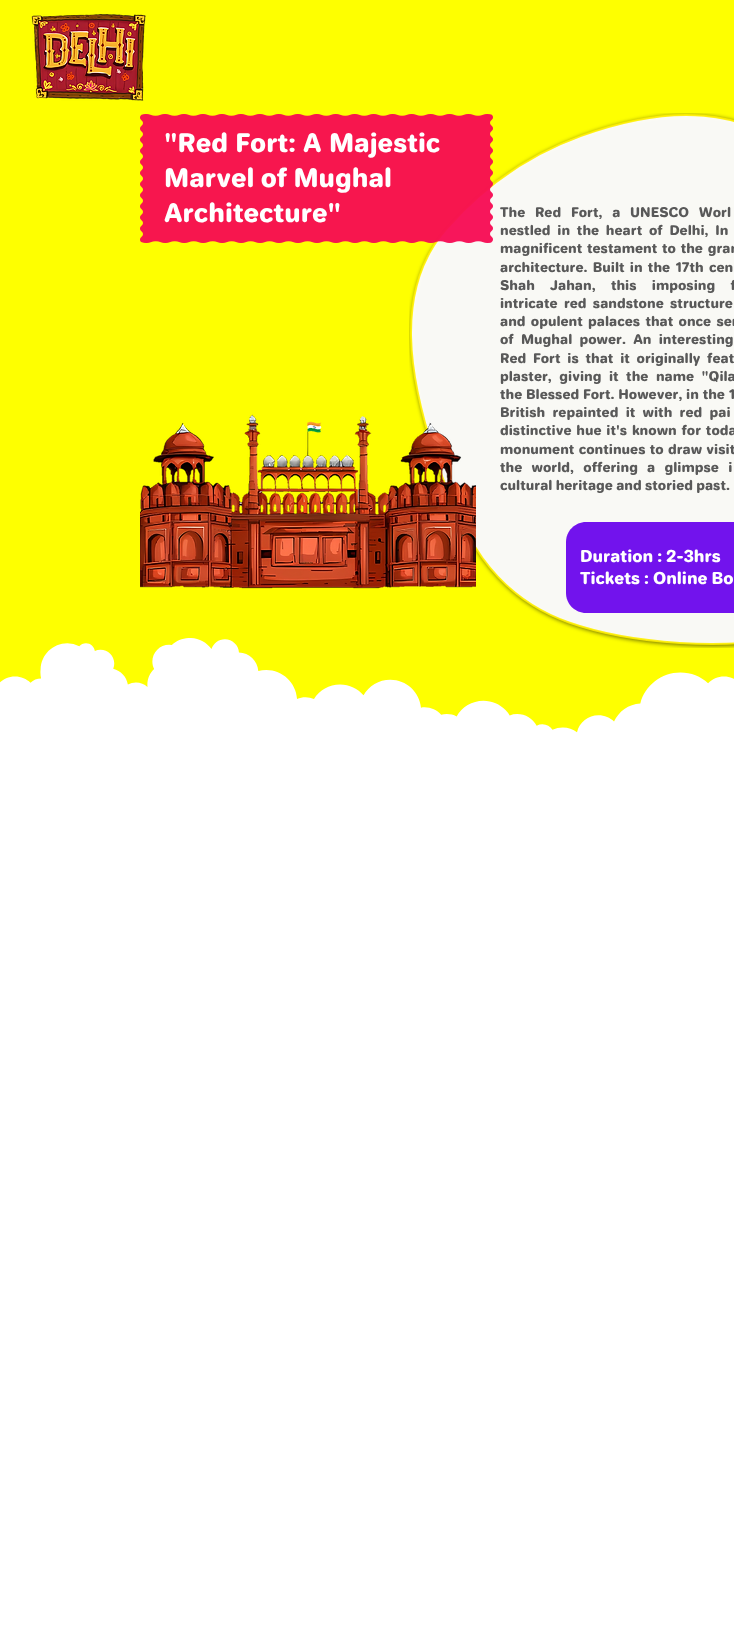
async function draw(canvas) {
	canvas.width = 734;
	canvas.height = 1636;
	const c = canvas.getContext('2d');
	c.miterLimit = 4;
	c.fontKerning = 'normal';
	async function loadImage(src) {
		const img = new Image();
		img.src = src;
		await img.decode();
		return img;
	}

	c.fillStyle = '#fff';
	c.fillRect(0, 0, 734, 1636);
	c.fillStyle = '#feff00';
	c.fillRect(0, 0, 734, 733);
	c.drawImage(await loadImage('img1.png'), 31, 14, 115, 87);
	c.drawImage(await loadImage('img5.png'), 0, 638, 734, 100);
	c.drawImage(await loadImage('img3.png'), 409, 113, 325, 535);
	c.drawImage(await loadImage('img2.png'), 140, 114, 353, 129);
	c.wordSpacing = '1px';
	c.font = '25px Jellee';
	c.fillStyle = '#fff';
	c.fillText('"Red Fort: A Majestic', 164, 152);
	c.wordSpacing = '0px';
	c.fillText('Marvel of Mughal', 164, 187);
	c.fillText('Architecture"', 164, 222);
	c.wordSpacing = '6.5px';
	c.font = '13px Jellee';
	c.fillStyle = '#595959';
	c.fillText('The Red Fort, a UNESCO Worl', 500, 217);
	c.wordSpacing = '3.5px';
	c.fillText('nestled in the heart of Delhi, In', 500, 235);
	c.wordSpacing = '1.5px';
	c.fillText('magnificent testament to the gran', 500, 253);
	c.wordSpacing = '2px';
	c.fillText('architecture. Built in the 17th cen', 500, 272);
	c.wordSpacing = '12px';
	c.fillText('Shah Jahan, this imposing f', 500, 290);
	c.wordSpacing = '3px';
	c.fillText('intricate red sandstone structure', 500, 308);
	c.wordSpacing = '2px';
	c.fillText('and opulent palaces that once ser', 500, 326);
	c.wordSpacing = '4px';
	c.fillText('of Mughal power. An interesting', 500, 344);
	c.wordSpacing = '3.5px';
	c.fillText('Red Fort is that it originally feat', 500, 363);
	c.wordSpacing = '4.25px';
	c.fillText('plaster, giving it the name "Qila', 500, 381);
	c.wordSpacing = '0.5px';
	c.fillText('the Blessed Fort. However, in the 1', 500, 399);
	c.wordSpacing = '4px';
	c.fillText('British repainted it with red pai', 500, 417);
	c.wordSpacing = '1.5px';
	c.fillText('distinctive hue it\'s known for toda', 500, 435);
	c.wordSpacing = '1px';
	c.fillText('monument continues to draw visit', 500, 454);
	c.wordSpacing = '6px';
	c.fillText('the world, offering a glimpse i', 500, 472);
	c.wordSpacing = '0px';
	c.fillText('cultural heritage and storied past.', 500, 490);
	c.drawImage(await loadImage('img4.png'), 140, 414, 336, 175);
	c.fillStyle = '#7213ed';
	c.beginPath();
	c.moveTo(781, 613);
	c.lineTo(586, 613);
	c.bezierCurveTo(575, 613, 566, 604, 566, 593);
	c.lineTo(566, 542);
	c.bezierCurveTo(566, 531, 575, 522, 586, 522);
	c.lineTo(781, 522);
	c.bezierCurveTo(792, 522, 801, 531, 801, 542);
	c.lineTo(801, 593);
	c.bezierCurveTo(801, 604, 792, 613, 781, 613);
	c.closePath();
	c.fill();
	c.font = '16px Jellee';
	c.fillStyle = '#fff';
	c.fillText('Duration : 2-3hrs', 580, 562);
	c.fillText('Tickets : Online Bo', 580, 584);
}

draw(document.querySelector('canvas'));
